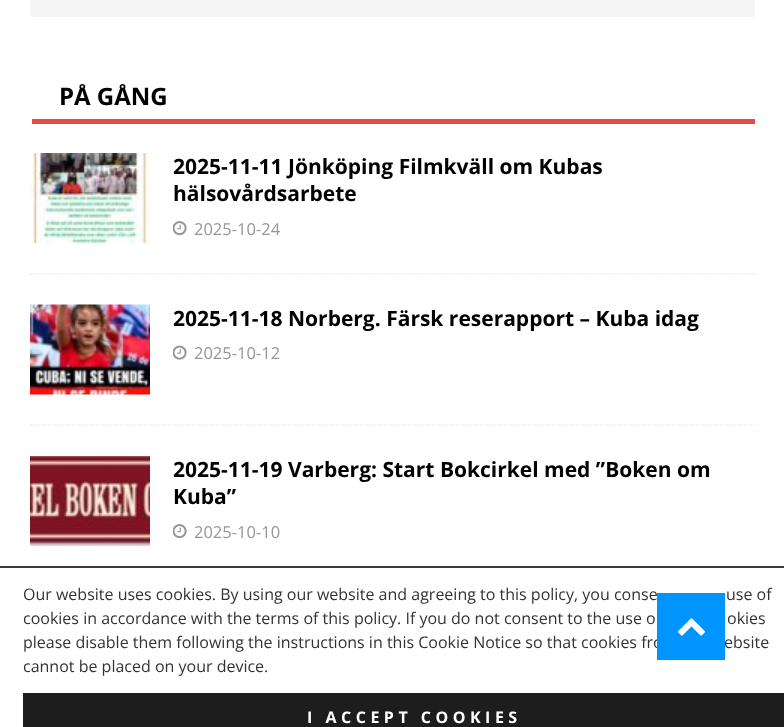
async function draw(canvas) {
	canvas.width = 784;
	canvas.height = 727;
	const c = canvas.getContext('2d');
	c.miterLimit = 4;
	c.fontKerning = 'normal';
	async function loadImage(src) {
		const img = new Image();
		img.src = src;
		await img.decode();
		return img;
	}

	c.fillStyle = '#fff';
	c.fillRect(0, 0, 784, 727);
	c.fillStyle = '#f5f5f5';
	c.fillRect(30, 0, 725, 17);
	c.fillStyle = '#e64946';
	c.fillRect(32, 119, 723, 5);
	c.font = 'bold 24px Open Sans';
	c.fillStyle = '#000';
	c.fillText('PÅ GÅNG', 59, 105);
	c.beginPath();
	c.moveTo(30, 274);
	c.lineTo(754.5, 274);
	c.strokeStyle = '#ebebeb';
	c.lineWidth = 1.5;
	c.setLineDash([1.5, 1.5]);
	c.stroke();
	c.drawImage(await loadImage('img1.png'), 30, 153, 120, 90);
	c.font = 'bold 21px Open Sans';
	c.fillText('2025-11-11 Jönköping Filmkväll om Kubas', 173, 174);
	c.fillText('hälsovårdsarbete', 173, 201);
	c.drawImage(await loadImage('img2.png'), 173, 221, 14, 15);
	c.font = '16.5px Open Sans';
	c.fillStyle = '#979797';
	c.fillText('2025-10-24', 194, 235);
	c.beginPath();
	c.moveTo(30, 425);
	c.lineTo(754.5, 425);
	c.stroke();
	c.drawImage(await loadImage('img3.png'), 30, 304, 120, 91);
	c.font = 'bold 21px Open Sans';
	c.fillStyle = '#000';
	c.fillText('2025-11-18 Norberg. Färsk reserapport – Kuba idag', 173, 326);
	c.drawImage(await loadImage('img4.png'), 173, 345, 14, 15);
	c.font = '16.5px Open Sans';
	c.fillStyle = '#979797';
	c.fillText('2025-10-12', 194, 359);
	c.drawImage(await loadImage('img5.png'), 30, 456, 120, 90);
	c.font = 'bold 21px Open Sans';
	c.fillStyle = '#000';
	c.fillText('2025-11-19 Varberg: Start Bokcirkel med ”Boken om', 173, 477);
	c.fillText('Kuba”', 173, 504);
	c.drawImage(await loadImage('img2.png'), 173, 524, 14, 15);
	c.font = '16.5px Open Sans';
	c.fillStyle = '#979797';
	c.fillText('2025-10-10', 194, 538);
	c.fillStyle = '#3b3939';
	c.fillRect(0, 566, 784, 2);
	c.font = '16px Open Sans';
	c.fillStyle = '#333';
	for (const [text, x, y] of [
		['Our website uses cookies. By using our website and agreeing to this policy, you conse', 23, 600],
		['use of', 726, 600],
		['cookies in accordance with the terms of this policy. If you do not consent to the use o', 23, 624],
		['okies', 727, 624],
		['please disable them following the instructions in this Cookie Notice so that cookies fro', 23, 648],
		['ebsite', 724, 648],
		['cannot be placed on your device.', 23, 672],
	]) {
		c.fillText(text, x, y);
	}
	c.fillStyle = '#1d1d1d';
	c.fillRect(23, 693, 761, 34);
	c.letterSpacing = '4.5px';
	c.font = 'bold 16px Open Sans';
	c.fillStyle = '#fff';
	c.fillText('I ACCEPT COOKIES', 307, 723);
	c.fillStyle = '#0094ff';
	c.fillRect(657, 593, 68, 67);
	c.drawImage(await loadImage('img6.png'), 678, 618, 27, 18);
}

draw(document.querySelector('canvas'));
